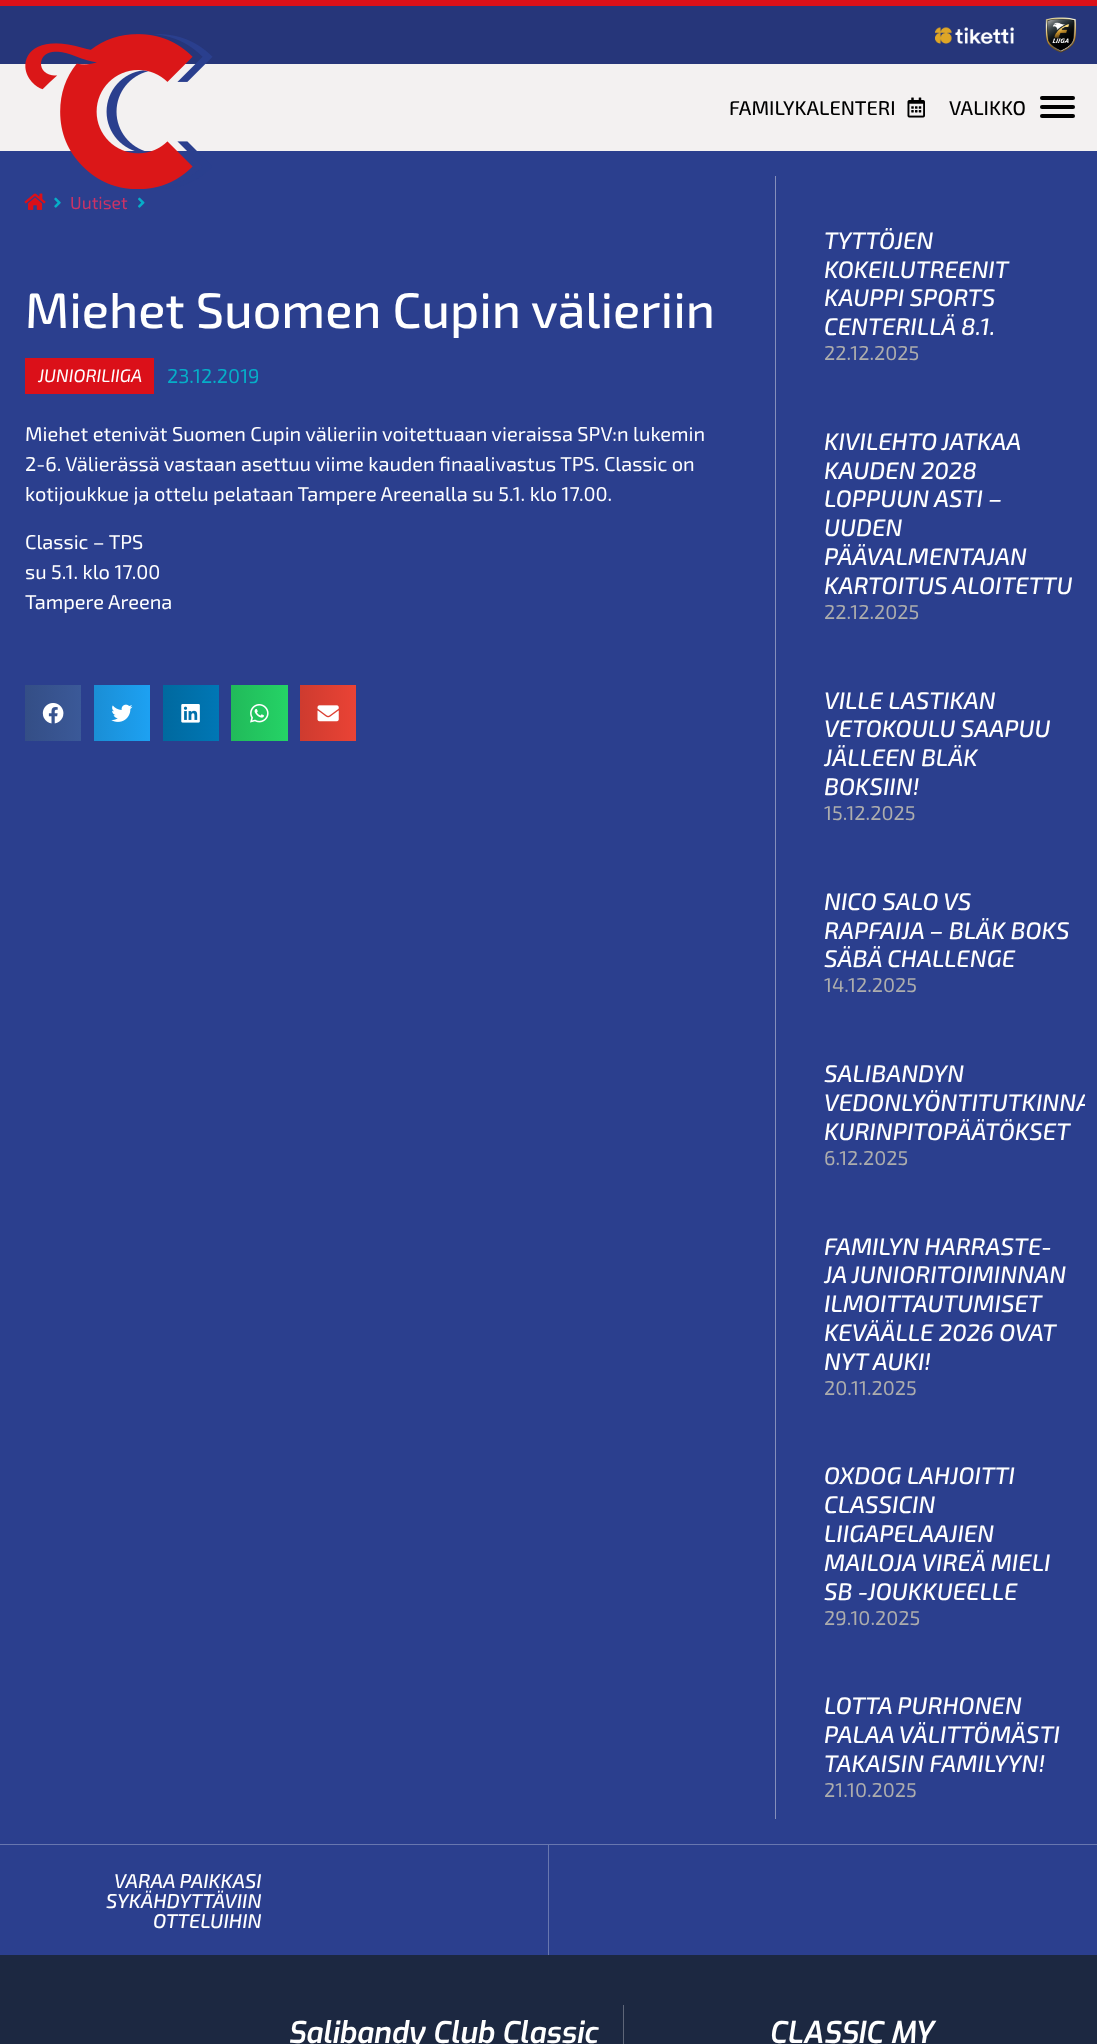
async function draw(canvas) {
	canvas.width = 1097;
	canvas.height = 2044;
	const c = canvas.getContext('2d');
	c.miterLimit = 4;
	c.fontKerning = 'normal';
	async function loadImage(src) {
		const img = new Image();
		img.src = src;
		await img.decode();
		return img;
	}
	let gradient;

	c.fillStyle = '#2b3f8e';
	c.fillRect(0, 0, 1097, 2044);
	c.fillStyle = '#26367a';
	c.fillRect(0, 6, 1097, 58);
	c.fillStyle = '#db1019';
	c.fillRect(0, 0, 1097, 6);
	c.drawImage(await loadImage('img1.png'), 935, 27, 79, 17);
	c.drawImage(await loadImage('img2.png'), 1045, 17, 32, 36);
	c.fillStyle = '#f3f1f1';
	c.fillRect(0, 64, 1097, 87);
	c.drawImage(await loadImage('img3.png'), 25, 34, 188, 155);
	c.font = '500 20px "Exo 2"';
	c.fillStyle = '#000';
	c.fillText('FAMILYKALENTERI', 729, 115);
	c.drawImage(await loadImage('img4.png'), 907, 97, 18, 21);
	c.fillText('VALIKKO', 949, 115);
	c.beginPath();
	c.roundRect(1040, 105, 35, 4, 2);
	c.fill();
	c.beginPath();
	c.roundRect(1040, 96, 35, 4, 2);
	c.fill();
	c.beginPath();
	c.roundRect(1040, 114, 35, 4, 2);
	c.fill();
	c.fillStyle = '#858fbb';
	c.fillRect(775, 176, 1, 1643);
	c.drawImage(await loadImage('img5.png'), 24, 193, 22, 17);
	c.drawImage(await loadImage('img6.png'), 54, 197, 7, 11);
	c.font = '17.5px "Exo 2"';
	c.fillStyle = '#c36';
	c.fillText('Uutiset', 70, 209);
	c.drawImage(await loadImage('img7.png'), 138, 197, 7, 11);
	c.font = '500 50px "Exo 2"';
	c.fillStyle = '#fff';
	c.fillText('Miehet Suomen Cupin välieriin', 25, 328);
	c.fillStyle = '#db1019';
	c.fillRect(25, 358, 129, 36);
	c.font = 'italic 18px "Exo 2"';
	c.fillStyle = '#fff';
	c.fillText('JUNIORILIIGA', 38, 382);
	c.font = '20px "Exo 2"';
	c.fillStyle = '#06aec8';
	c.fillText('23.12.2019', 167, 383);
	c.fillStyle = '#fff';
	for (const [text, x, y] of [
		['Miehet etenivät Suomen Cupin välieriin voitettuaan vieraissa SPV:n lukemin', 25, 441],
		['2-6. Välierässä vastaan asettuu viime kauden finaalivastus TPS. Classic on', 25, 471],
		['kotijoukkue ja ottelu pelataan Tampere Areenalla su 5.1. klo 17.00.', 25, 501],
		['Classic – TPS', 25, 549],
		['su 5.1. klo 17.00', 25, 579],
		['Tampere Areena', 25, 609],
	]) {
		c.fillText(text, x, y);
	}
	gradient = c.createLinearGradient(25, 713, 81, 713);
	gradient.addColorStop(0, '#344e86');
	gradient.addColorStop(1, '#3b5998');
	c.fillStyle = gradient;
	c.fillRect(25, 685, 56, 56);
	c.drawImage(await loadImage('img8.png'), 42, 703, 22, 21);
	gradient = c.createLinearGradient(94, 713, 150, 713);
	gradient.addColorStop(0, '#1a8ed5');
	gradient.addColorStop(1, '#1da1f2');
	c.fillStyle = gradient;
	c.fillRect(94, 685, 56, 56);
	c.drawImage(await loadImage('img9.png'), 111, 704, 22, 18);
	gradient = c.createLinearGradient(163, 713, 219, 713);
	gradient.addColorStop(0, '#00699f');
	gradient.addColorStop(1, '#0077b5');
	c.fillStyle = gradient;
	c.fillRect(163, 685, 56, 56);
	c.drawImage(await loadImage('img10.png'), 181, 704, 19, 19);
	gradient = c.createLinearGradient(231, 713, 288, 713);
	gradient.addColorStop(0, '#21ba5a');
	gradient.addColorStop(1, '#25d366');
	c.fillStyle = gradient;
	c.fillRect(231, 685, 57, 56);
	c.drawImage(await loadImage('img11.png'), 250, 704, 19, 19);
	gradient = c.createLinearGradient(300, 713, 356, 713);
	gradient.addColorStop(0, '#ce3b2f');
	gradient.addColorStop(1, '#ea4335');
	c.fillStyle = gradient;
	c.fillRect(300, 685, 56, 56);
	c.drawImage(await loadImage('img12.png'), 317, 705, 22, 17);
	c.font = 'italic 500 24px "Exo 2"';
	c.fillStyle = '#fff';
	for (const [text, x, y] of [
		['TYTTÖJEN', 824, 249],
		['KOKEILUTREENIT', 824, 278],
		['KAUPPI SPORTS', 824, 306],
		['CENTERILLÄ 8.1.', 824, 335],
	]) {
		c.fillText(text, x, y);
	}
	c.font = '20px "Exo 2"';
	c.fillStyle = '#adadad';
	c.fillText('22.12.2025', 824, 360);
	c.wordSpacing = '-1px';
	c.font = 'italic 500 24px "Exo 2"';
	c.fillStyle = '#fff';
	c.fillText('KIVILEHTO JATKAA', 824, 450);
	c.wordSpacing = '0px';
	for (const [text, x, y] of [
		['KAUDEN 2028', 824, 479],
		['LOPPUUN ASTI –', 824, 507],
		['UUDEN', 824, 536],
		['PÄÄVALMENTAJAN', 824, 565],
		['KARTOITUS ALOITETTU', 824, 594],
	]) {
		c.fillText(text, x, y);
	}
	c.font = '20px "Exo 2"';
	c.fillStyle = '#adadad';
	c.fillText('22.12.2025', 824, 619);
	c.font = 'italic 500 24px "Exo 2"';
	c.fillStyle = '#fff';
	for (const [text, x, y] of [
		['VILLE LASTIKAN', 824, 709],
		['VETOKOULU SAAPUU', 824, 737],
		['JÄLLEEN BLÄK', 824, 766],
		['BOKSIIN!', 824, 795],
	]) {
		c.fillText(text, x, y);
	}
	c.font = '20px "Exo 2"';
	c.fillStyle = '#adadad';
	c.fillText('15.12.2025', 824, 820);
	c.font = 'italic 500 24px "Exo 2"';
	c.fillStyle = '#fff';
	for (const [text, x, y] of [
		['NICO SALO VS', 824, 910],
		['RAPFAIJA – BLÄK BOKS', 824, 939],
		['SÄBÄ CHALLENGE', 824, 967],
	]) {
		c.fillText(text, x, y);
	}
	c.font = '20px "Exo 2"';
	c.fillStyle = '#adadad';
	c.fillText('14.12.2025', 824, 992);
	c.font = 'italic 500 24px "Exo 2"';
	c.fillStyle = '#fff';
	c.fillText('SALIBANDYN', 824, 1082);
	c.save();
	c.beginPath();
	c.roundRect(814, 1048, 271, 140, 13);
	c.clip();
	c.fillText('VEDONLYÖNTITUTKINNA', 824, 1111);
	c.restore();
	c.fillText('KURINPITOPÄÄTÖKSET', 824, 1140);
	c.font = '20px "Exo 2"';
	c.fillStyle = '#adadad';
	c.fillText('6.12.2025', 824, 1165);
	c.font = 'italic 500 24px "Exo 2"';
	c.fillStyle = '#fff';
	for (const [text, x, y] of [
		['FAMILYN HARRASTE-', 824, 1255],
		['JA JUNIORITOIMINNAN', 824, 1283],
		['ILMOITTAUTUMISET', 824, 1312],
		['KEVÄÄLLE 2026 OVAT', 824, 1341],
		['NYT AUKI!', 824, 1370],
	]) {
		c.fillText(text, x, y);
	}
	c.font = '20px "Exo 2"';
	c.fillStyle = '#adadad';
	c.fillText('20.11.2025', 824, 1395);
	c.font = 'italic 500 24px "Exo 2"';
	c.fillStyle = '#fff';
	for (const [text, x, y] of [
		['OXDOG LAHJOITTI', 824, 1484],
		['CLASSICIN', 824, 1513],
		['LIIGAPELAAJIEN', 824, 1542],
		['MAILOJA VIREÄ MIELI', 824, 1571],
		['SB -JOUKKUEELLE', 824, 1600],
	]) {
		c.fillText(text, x, y);
	}
	c.font = '20px "Exo 2"';
	c.fillStyle = '#adadad';
	c.fillText('29.10.2025', 824, 1625);
	c.font = 'italic 500 24px "Exo 2"';
	c.fillStyle = '#fff';
	for (const [text, x, y] of [
		['LOTTA PURHONEN', 824, 1714],
		['PALAA VÄLITTÖMÄSTI', 824, 1743],
		['TAKAISIN FAMILYYN!', 824, 1772],
	]) {
		c.fillText(text, x, y);
	}
	c.font = '20px "Exo 2"';
	c.fillStyle = '#adadad';
	c.fillText('21.10.2025', 824, 1797);
	c.fillStyle = '#6877af';
	c.fillRect(0, 1844, 1097, 1);
	c.fillRect(548, 1845, 1, 110);
	c.font = 'italic 500 20px "Exo 2"';
	c.fillStyle = '#fff';
	for (const [text, x, y] of [
		['VARAA PAIKKASI', 114, 1888],
		['SYKÄHDYTTÄVIIN', 106, 1908],
		['OTTELUIHIN', 153, 1928],
	]) {
		c.fillText(text, x, y);
	}
	c.fillStyle = '#1c2841';
	c.fillRect(0, 1955, 1097, 89);
	c.fillStyle = '#5e6678';
	c.fillRect(623, 2005, 1, 39);
	c.font = 'italic 600 30px Exo';
	c.fillStyle = '#fff';
	c.fillText('Salibandy Club Classic', 288, 2043);
	c.fillText('CLASSIC MY', 769, 2043);
}

draw(document.querySelector('canvas'));
